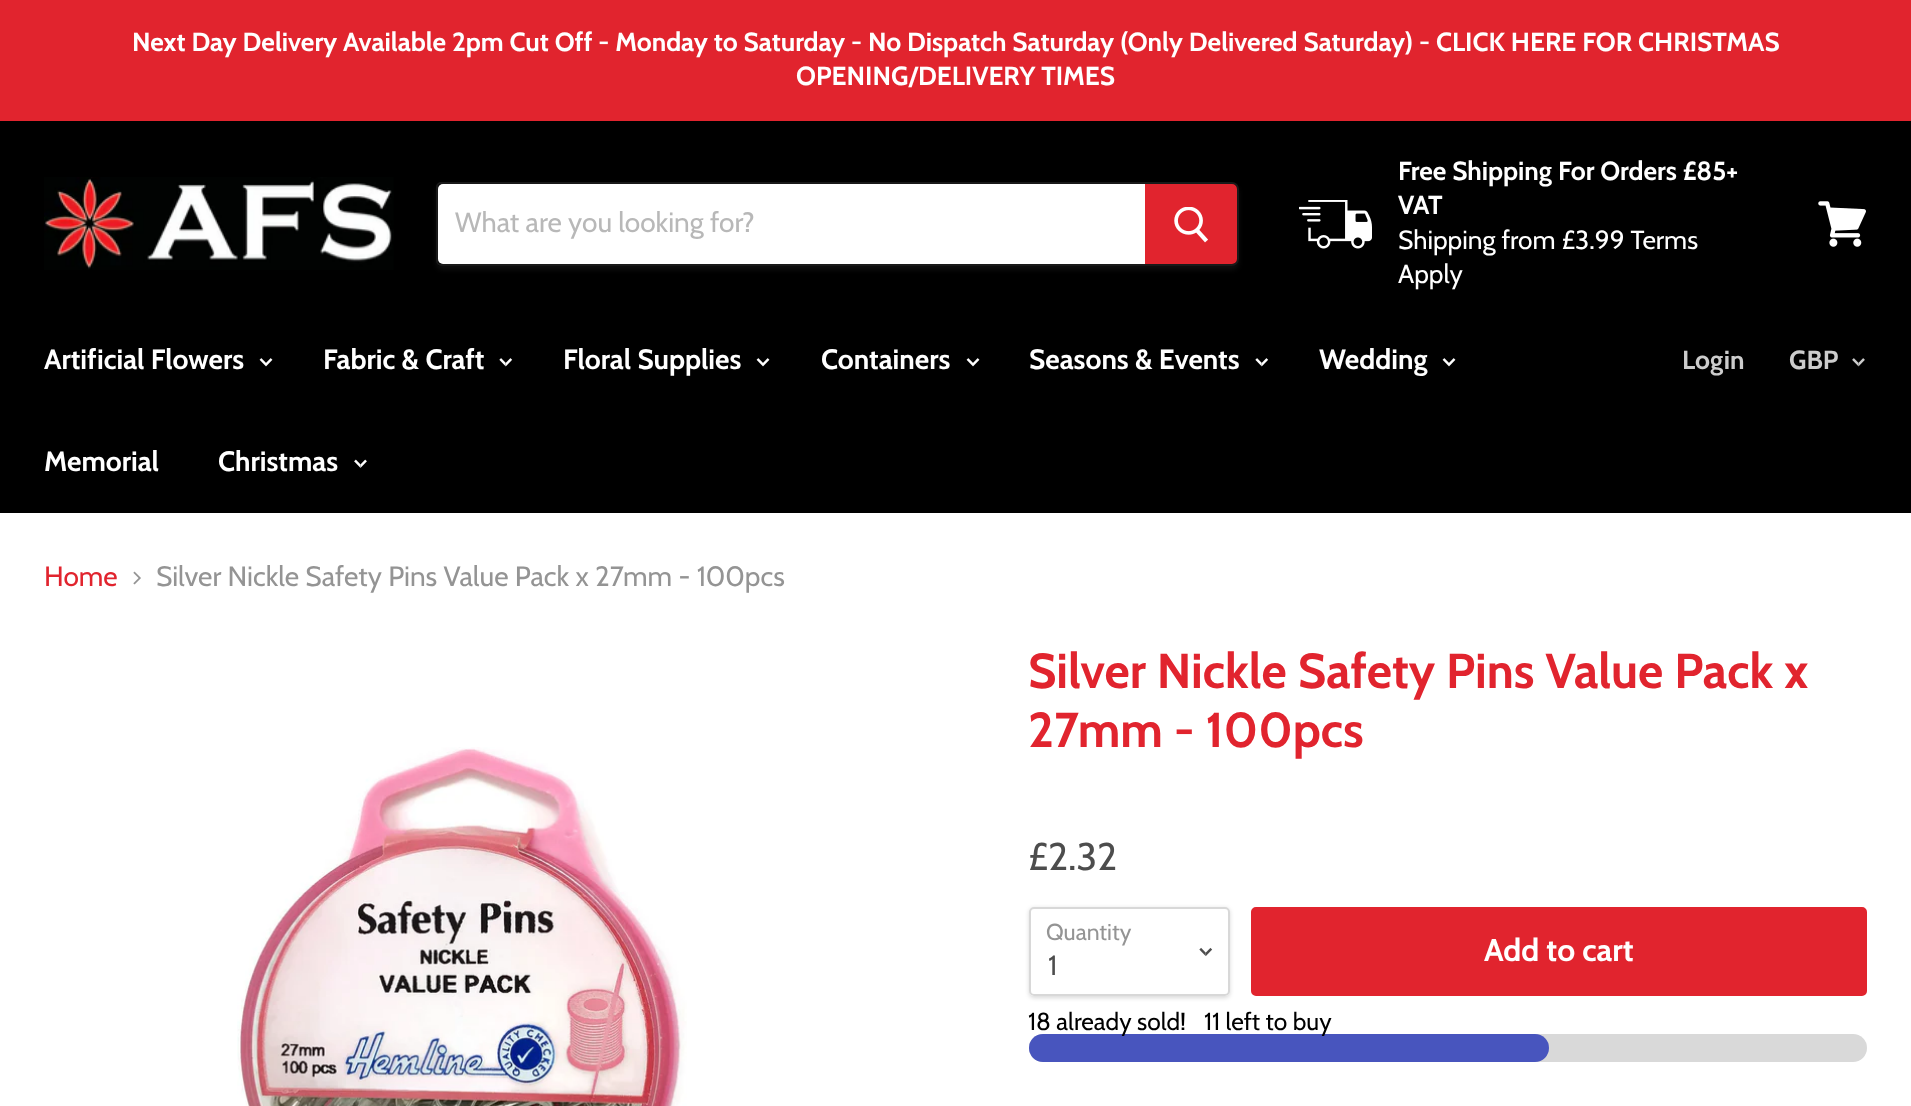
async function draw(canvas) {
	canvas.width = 1911;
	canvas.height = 1106;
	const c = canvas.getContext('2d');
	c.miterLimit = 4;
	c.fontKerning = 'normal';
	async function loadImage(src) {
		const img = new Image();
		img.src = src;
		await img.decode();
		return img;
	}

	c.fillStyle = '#fff';
	c.fillRect(0, 0, 1911, 1106);
	c.fillStyle = '#000';
	c.fillRect(0, 121, 1911, 392);
	c.fillStyle = '#e1242e';
	c.fillRect(0, 0, 1911, 121);
	c.font = 'bold 26.25px Cabin';
	c.fillStyle = '#fff';
	c.fillText('Next Day Delivery Available 2pm Cut Off - Monday to Saturday - No Dispatch Saturday (Only Delivered Saturday) - CLICK HERE FOR CHRISTMAS', 132, 51);
	c.fillText('OPENING/DELIVERY TIMES', 796, 85);
	c.drawImage(await loadImage('img1.png'), 44, 177, 350, 93);
	c.save();
	c.beginPath();
	c.moveTo(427, 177);
	c.lineTo(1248, 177);
	c.lineTo(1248, 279);
	c.lineTo(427, 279);
	c.closePath();
	c.moveTo(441, 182);
	c.lineTo(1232, 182);
	c.bezierCurveTo(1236, 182, 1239, 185, 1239, 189);
	c.lineTo(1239, 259);
	c.bezierCurveTo(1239, 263, 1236, 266, 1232, 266);
	c.lineTo(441, 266);
	c.bezierCurveTo(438, 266, 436, 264, 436, 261);
	c.lineTo(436, 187);
	c.bezierCurveTo(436, 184, 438, 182, 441, 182);
	c.closePath();
	c.clip('evenodd');
	c.fillStyle = '#7f7f7f1c';
	c.filter = 'blur(2.5px)';
	c.beginPath();
	c.roundRect(436, 186, 803, 84, 7);
	c.fill();
	c.filter = 'none';
	c.restore();
	c.beginPath();
	c.roundRect(437, 183, 801, 82, [4, 6, 6, 4]);
	c.strokeStyle = '#7f7f7f33';
	c.lineWidth = 2;
	c.stroke();
	c.beginPath();
	c.roundRect(438, 184, 707, 80, [5, 0, 0, 5]);
	c.fill();
	c.font = '28px Cabin';
	c.fillStyle = '#b8b8b8';
	c.fillText('What are you looking for?', 455, 232);
	c.fillStyle = '#e1242e';
	c.beginPath();
	c.roundRect(1146, 185, 90, 78, [0, 4, 4, 0]);
	c.fill();
	c.strokeStyle = '#e1242e';
	c.stroke();
	c.drawImage(await loadImage('img2.png'), 1174, 207, 34, 36);
	c.drawImage(await loadImage('img3.png'), 1299, 200, 73, 49);
	c.font = 'bold 26.25px Cabin';
	c.fillStyle = '#fff';
	c.fillText('Free Shipping For Orders £85+', 1398, 180);
	c.fillText('VAT', 1398, 214);
	c.font = '26.25px Cabin';
	c.fillText('Shipping from £3.99 Terms', 1398, 249);
	c.fillText('Apply', 1398, 283);
	c.drawImage(await loadImage('img4.png'), 1818, 201, 48, 46);
	c.font = 'bold 28px Cabin';
	c.fillText('Artificial Flowers', 44, 369);
	c.drawImage(await loadImage('img5.png'), 259, 358, 14, 9);
	c.fillText('Fabric & Craft', 323, 369);
	c.drawImage(await loadImage('img6.png'), 499, 358, 14, 9);
	c.fillText('Floral Supplies', 563, 369);
	c.drawImage(await loadImage('img5.png'), 756, 358, 14, 9);
	c.fillText('Containers', 821, 369);
	c.drawImage(await loadImage('img5.png'), 966, 358, 14, 9);
	c.fillText('Seasons & Events', 1029, 369);
	c.drawImage(await loadImage('img6.png'), 1255, 358, 14, 9);
	c.fillText('Wedding', 1319, 369);
	c.drawImage(await loadImage('img5.png'), 1442, 358, 14, 9);
	c.fillText('Memorial', 44, 471);
	c.fillText('Christmas', 218, 471);
	c.drawImage(await loadImage('img7.png'), 354, 459, 13, 9);
	c.font = 'bold 26.25px Cabin';
	c.fillStyle = '#ccc';
	c.fillText('Login', 1682, 369);
	c.fillText('GBP', 1789, 369);
	c.drawImage(await loadImage('img8.png'), 1852, 358, 13, 9);
	c.font = '28px Cabin';
	c.fillStyle = '#e1242e';
	c.fillText('Home', 44, 586);
	c.drawImage(await loadImage('img9.png'), 133, 571, 8, 14);
	c.fillStyle = '#949494';
	c.fillText('Silver Nickle Safety Pins Value Pack x 27mm - 100pcs', 156, 586);
	c.drawImage(await loadImage('img10.png'), 237, 747, 450, 359);
	c.font = 'bold 49px Cabin';
	c.fillStyle = '#e1242e';
	c.fillText('Silver Nickle Safety Pins Value Pack x', 1028, 688);
	c.fillText('27mm - 100pcs', 1028, 747);
	c.font = '38.5px Cabin';
	c.fillStyle = '#4d4d4d';
	c.fillText('£2.32', 1028, 870);
	c.save();
	c.beginPath();
	c.moveTo(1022, 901);
	c.lineTo(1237, 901);
	c.lineTo(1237, 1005);
	c.lineTo(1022, 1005);
	c.closePath();
	c.moveTo(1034, 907);
	c.lineTo(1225, 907);
	c.bezierCurveTo(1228, 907, 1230, 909, 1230, 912);
	c.lineTo(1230, 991);
	c.bezierCurveTo(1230, 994, 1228, 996, 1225, 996);
	c.lineTo(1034, 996);
	c.bezierCurveTo(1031, 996, 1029, 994, 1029, 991);
	c.lineTo(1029, 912);
	c.bezierCurveTo(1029, 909, 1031, 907, 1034, 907);
	c.closePath();
	c.clip('evenodd');
	c.fillStyle = '#00000026';
	c.filter = 'blur(2px)';
	c.beginPath();
	c.roundRect(1029, 908, 201, 90, 5);
	c.fill();
	c.filter = 'none';
	c.restore();
	c.beginPath();
	c.roundRect(1030, 908, 199, 87, 4);
	c.strokeStyle = '#7f7f7f4d';
	c.stroke();
	c.font = '23px Cabin';
	c.fillStyle = '#949494';
	c.fillText('Quantity', 1046, 940);
	c.drawImage(await loadImage('img11.png'), 1199, 947, 14, 10);
	c.font = '28px Cabin';
	c.fillStyle = '#4d4d4d';
	c.fillText('1', 1048, 975);
	c.fillStyle = '#e1242e';
	c.beginPath();
	c.roundRect(1252, 908, 614, 87, 4);
	c.fill();
	c.strokeStyle = '#e1242e';
	c.stroke();
	c.font = 'bold 31.5px Cabin';
	c.fillStyle = '#fff';
	c.fillText('Add to cart', 1484, 961);
	c.fillStyle = '#d9d9d9';
	c.beginPath();
	c.roundRect(1029, 1034, 838, 28, 14);
	c.fill();
	c.fillStyle = '#4855be';
	c.beginPath();
	c.roundRect(1029, 1034, 520, 28, 14);
	c.fill();
	c.font = '24.5px Cabin';
	c.fillStyle = '#000';
	c.fillText('18 already sold!', 1028, 1030);
	c.fillText('11 left to buy', 1204, 1030);
}

draw(document.querySelector('canvas'));
